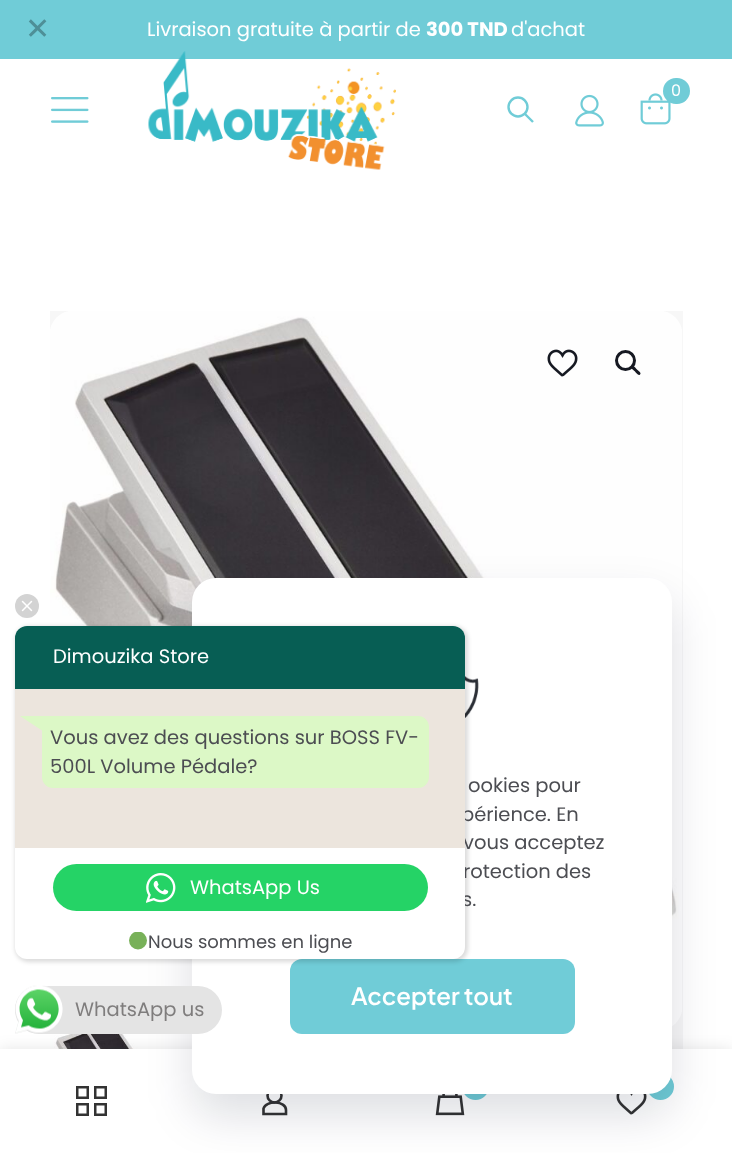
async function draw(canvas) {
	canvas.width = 732;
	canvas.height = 1153;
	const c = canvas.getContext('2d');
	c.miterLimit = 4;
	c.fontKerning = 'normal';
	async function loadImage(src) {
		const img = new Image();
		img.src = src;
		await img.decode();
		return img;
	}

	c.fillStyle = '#fff';
	c.fillRect(0, 0, 732, 1153);
	c.fillStyle = '#70ccd7';
	c.fillRect(0, 0, 732, 59);
	c.font = '30px DejaVu Sans';
	c.fillStyle = '#4e8f97';
	c.fillText('✕', 25, 39);
	c.font = '19.5px Poppins';
	c.fillStyle = '#fff';
	c.fillText('Livraison gratuite à partir de', 147, 36);
	c.font = 'bold 19.5px Poppins';
	c.fillText('300 TND', 426, 36);
	c.font = '19.5px Poppins';
	c.fillText('d\'achat', 511, 36);
	c.drawImage(await loadImage('img1.png'), 51, 97, 38, 26);
	c.drawImage(await loadImage('img2.png'), 148, 51, 248, 119);
	c.drawImage(await loadImage('img3.png'), 640, 93, 31, 32);
	c.fillStyle = '#70ccd7';
	c.beginPath();
	c.roundRect(663, 78, 27, 26, 13);
	c.fill();
	c.font = '16px Poppins';
	c.fillStyle = '#fff';
	c.fillText('0', 671, 96);
	c.beginPath();
	c.arc(518, 107, 9.5, 0, 2 * Math.PI);
	c.strokeStyle = '#70ccd7';
	c.lineWidth = 2.4;
	c.stroke();
	c.beginPath();
	c.moveTo(524.5, 113.5);
	c.lineTo(533, 122);
	c.stroke();
	c.drawImage(await loadImage('img4.png'), 575, 94, 29, 33);
	c.fillStyle = '#f7f7f7';
	c.fillRect(50, 311, 633, 738);
	c.drawImage(await loadImage('img5.png'), 50, 311, 632, 716);
	c.drawImage(await loadImage('img6.png'), 547, 349, 31, 28);
	c.beginPath();
	c.arc(625.5, 360.5, 9, 0, 2 * Math.PI);
	c.strokeStyle = '#161922';
	c.lineWidth = 3;
	c.stroke();
	c.fillStyle = '#161922';
	c.beginPath();
	c.moveTo(632, 366.5);
	c.bezierCurveTo(633.5, 364.5, 636, 368.5, 637, 369.5);
	c.bezierCurveTo(638, 370.5, 642, 373, 640, 374.5);
	c.bezierCurveTo(638.5, 376.5, 636, 372.5, 635, 371.5);
	c.bezierCurveTo(634, 370.5, 630, 368, 632, 366.5);
	c.closePath();
	c.fill();
	c.drawImage(await loadImage('img7.png'), 50, 1034, 142, 15);
	c.fillStyle = '#d3d3d3';
	c.beginPath();
	c.arc(27, 606, 12, 0, 2 * Math.PI);
	c.fill();
	c.drawImage(await loadImage('img8.png'), 21, 600, 12, 12);
	c.fillStyle = '#0000001a';
	c.filter = 'blur(7.5px)';
	c.beginPath();
	c.rect(0, 1049, 732, 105);
	c.fill();
	c.filter = 'none';
	c.fillStyle = '#fff';
	c.fillRect(0, 1049, 732, 104);
	c.beginPath();
	c.arc(274.5, 1095.5, 7, 0, 2 * Math.PI);
	c.strokeStyle = '#333';
	c.lineWidth = 2.6;
	c.stroke();
	c.beginPath();
	c.moveTo(286, 1110);
	c.lineTo(286, 1114);
	c.lineTo(263.5, 1114);
	c.lineTo(263.5, 1108.5);
	c.bezierCurveTo(266, 1100, 286, 1100.5, 286, 1110);
	c.closePath();
	c.stroke();
	c.drawImage(await loadImage('img12.png'), 435, 1094, 30, 22);
	c.fillStyle = '#70ccd7';
	c.beginPath();
	c.arc(475.5, 1086.5, 13.5, 0, 2 * Math.PI);
	c.fill();
	c.beginPath();
	c.arc(660.5, 1086.5, 13.5, 0, 2 * Math.PI);
	c.fill();
	c.drawImage(await loadImage('img13.png'), 616, 1094, 31, 21);
	c.fillStyle = '#01072721';
	c.filter = 'blur(22.5px)';
	c.beginPath();
	c.roundRect(192, 600, 480, 516, 24);
	c.fill();
	c.filter = 'none';
	c.fillStyle = '#fff';
	c.beginPath();
	c.roundRect(192, 578, 480, 516, 24);
	c.fill();
	c.drawImage(await loadImage('img11.png'), 465, 676, 14, 42);
	c.fillStyle = '#70ccd7';
	c.beginPath();
	c.roundRect(290, 959, 285, 75, 12);
	c.fill();
	c.fillStyle = '#00000024';
	c.filter = 'blur(2px)';
	c.beginPath();
	c.roundRect(15, 626, 453, 336, 14);
	c.fill();
	c.filter = 'none';
	c.font = '19.5px Poppins';
	c.fillStyle = '#4c4d52';
	for (const [text, x, y] of [
		['périence. En', 461, 821],
		['vous acceptez', 463, 849],
		['rotection des', 463, 878],
		['s.', 462, 906],
	]) {
		c.fillText(text, x, y);
	}
	c.fillStyle = '#fff';
	c.beginPath();
	c.roundRect(15, 626, 450, 333, 12);
	c.fill();
	c.fillStyle = '#075e54';
	c.beginPath();
	c.roundRect(15, 626, 450, 63, [12, 12, 0, 0]);
	c.fill();
	c.fillStyle = '#fff';
	c.fillText('Dimouzika Store', 53, 663);
	c.fillStyle = '#ece5dd';
	c.fillRect(15, 689, 450, 159);
	c.fillStyle = '#dcf8c6';
	c.beginPath();
	c.roundRect(42, 716, 387, 72, [0, 11, 11, 11]);
	c.fill();
	c.beginPath();
	c.moveTo(42, 730.5);
	c.lineTo(42, 716);
	c.lineTo(20, 716);
	c.closePath();
	c.fill();
	c.fillStyle = '#4c4d52';
	c.fillText('Vous avez des questions sur BOSS FV-', 50, 744);
	c.fillText('500L Volume Pédale?', 50, 773);
	c.fillStyle = '#25d366';
	c.beginPath();
	c.roundRect(53, 864, 375, 47, 23.5);
	c.fill();
	c.drawImage(await loadImage('img9.png'), 146, 873, 30, 30);
	c.fillStyle = '#fff';
	c.fillText('WhatsApp Us', 190, 894);
	c.font = '18px Poppins';
	c.fillStyle = '#4c4d52';
	c.fillText('Nous sommes en ligne', 148, 948);
	c.save();
	c.beginPath();
	c.rect(129, 932, 18, 18);
	c.clip();
	c.fillStyle = '#78b159';
	c.beginPath();
	c.arc(138, 940.5, 9, 0, 2 * Math.PI);
	c.fill();
	c.restore();
	c.fillStyle = '#e4e4e4';
	c.beginPath();
	c.roundRect(15, 986, 207, 48, 24);
	c.fill();
	c.drawImage(await loadImage('img10.png'), 15, 985, 48, 49);
	c.font = '19.5px Poppins';
	c.fillStyle = '#7f7d7d';
	c.fillText('WhatsApp us', 75, 1016);
	c.fillStyle = '#4c4d52';
	c.fillText('ookies pour', 468, 792);
	c.font = '600 24px Plus Jakarta Sans';
	c.fillStyle = '#fff';
	c.fillText('Accepter tout', 351, 1005);
	c.lineWidth = 2.5;
	c.strokeRect(95.25, 1087.25, 10.5, 10.5);
	c.strokeRect(77.25, 1087.25, 10.5, 10.5);
	c.strokeRect(77.25, 1104.25, 10.5, 10.5);
	c.strokeRect(95.25, 1104.25, 10.5, 10.5);
}

draw(document.querySelector('canvas'));
